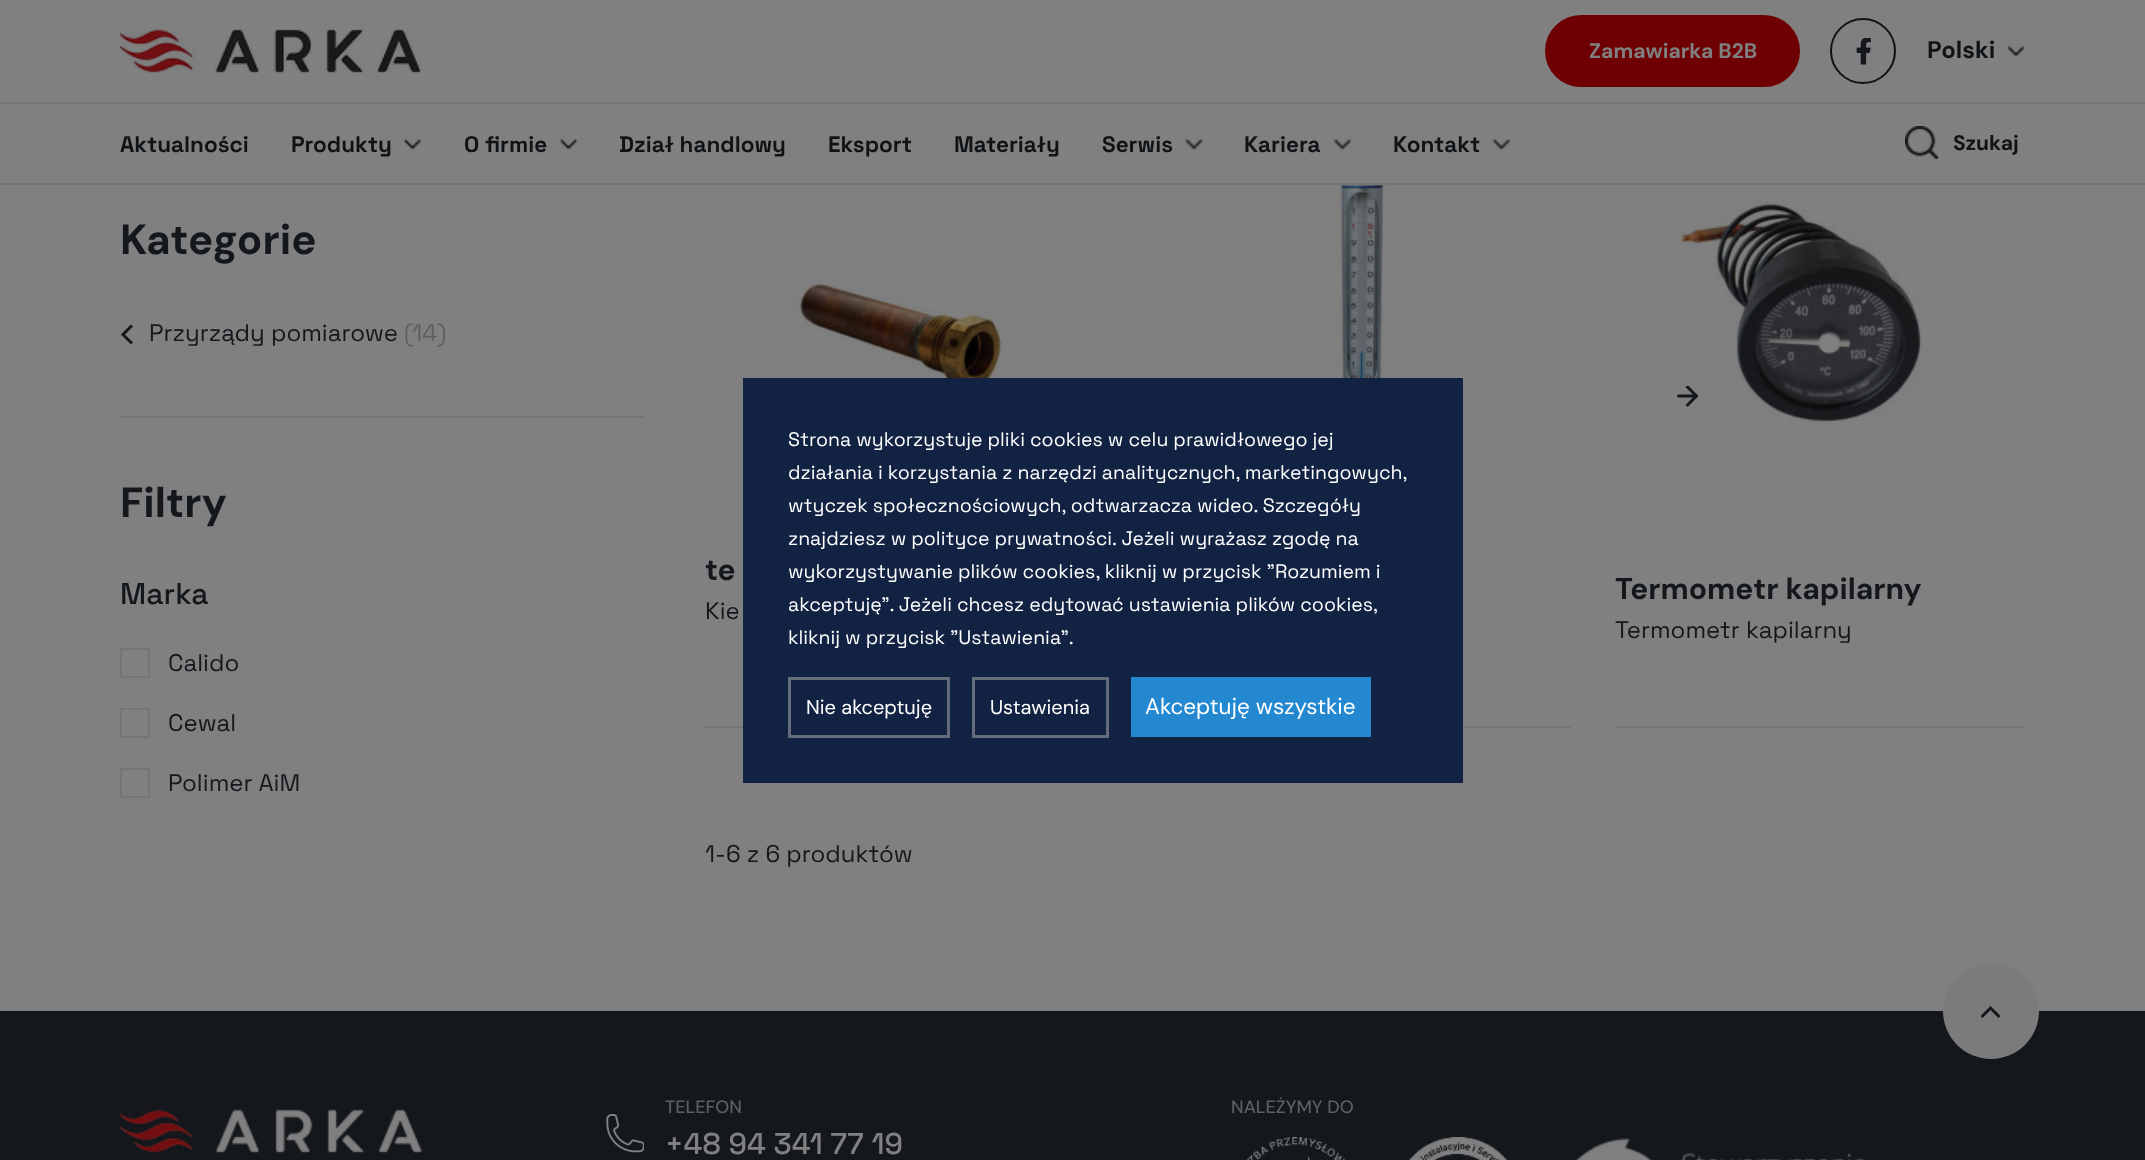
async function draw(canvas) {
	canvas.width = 2145;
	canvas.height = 1160;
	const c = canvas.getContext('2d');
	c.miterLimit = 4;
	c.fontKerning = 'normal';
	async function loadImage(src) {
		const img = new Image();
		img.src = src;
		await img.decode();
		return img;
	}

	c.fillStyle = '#808080';
	c.fillRect(0, 0, 2145, 1160);
	c.drawImage(await loadImage('img1.png'), 120, 29, 300, 44);
	c.fillStyle = '#6e0003';
	c.beginPath();
	c.roundRect(1546, 16, 253, 70, 35);
	c.fill();
	c.strokeStyle = '#6e0003';
	c.lineWidth = 2;
	c.stroke();
	c.font = 'bold 21px DM Sans';
	c.fillStyle = '#808080';
	c.fillText('Zamawiarka B2B', 1589, 58);
	c.beginPath();
	c.arc(1863, 51, 32, 0, 2 * Math.PI);
	c.strokeStyle = '#101316';
	c.stroke();
	c.drawImage(await loadImage('img2.png'), 1856, 38, 15, 27);
	c.font = 'bold 24px DM Sans';
	c.fillStyle = '#101316';
	c.fillText('Polski', 1927, 58);
	c.drawImage(await loadImage('img3.png'), 2007, 46, 18, 11);
	c.fillStyle = '#757576';
	c.fillRect(0, 102, 2145, 2);
	c.fillRect(0, 183, 2145, 2);
	c.font = 'bold 22.5px Space Grotesk';
	c.fillStyle = '#101316';
	c.fillText('Aktualności', 120, 152);
	c.fillText('Produkty', 291, 152);
	c.drawImage(await loadImage('img4.png'), 403, 139, 19, 11);
	c.fillText('O firmie', 464, 152);
	c.drawImage(await loadImage('img4.png'), 559, 139, 19, 11);
	for (const [text, x, y] of [
		['Dział handlowy', 619, 152],
		['Eksport', 828, 152],
		['Materiały', 954, 152],
		['Serwis', 1102, 152],
	]) {
		c.fillText(text, x, y);
	}
	c.drawImage(await loadImage('img5.png'), 1184, 138, 20, 13);
	c.fillText('Kariera', 1244, 152);
	c.drawImage(await loadImage('img6.png'), 1333, 138, 19, 13);
	c.fillText('Kontakt', 1393, 152);
	c.drawImage(await loadImage('img6.png'), 1492, 138, 19, 13);
	c.drawImage(await loadImage('img7.png'), 1905, 126, 33, 33);
	c.font = 'bold 21px DM Sans';
	c.fillText('Szukaj', 1953, 150);
	c.font = 'bold 42px DM Sans';
	c.fillStyle = '#14181c';
	c.fillText('Kategorie', 120, 254);
	c.fillStyle = '#757576';
	c.fillRect(120, 416, 525, 2);
	c.beginPath();
	c.moveTo(132, 325.5);
	c.lineTo(123, 334.5);
	c.lineTo(132, 343.5);
	c.strokeStyle = '#14181c';
	c.lineWidth = 3;
	c.stroke();
	c.font = '24px Space Grotesk';
	c.fillStyle = '#14181c';
	c.fillText('Przyrządy pomiarowe', 149, 341);
	c.fillStyle = '#5e5f61';
	c.fillText('(14)', 404, 341);
	c.font = 'bold 42px DM Sans';
	c.fillStyle = '#14181c';
	c.fillText('Filtry', 120, 517);
	c.font = '500 30px Space Grotesk';
	c.fillText('Marka', 120, 604);
	c.strokeStyle = '#757576';
	c.lineWidth = 2;
	c.strokeRect(121, 649, 28, 28);
	c.font = '24px Space Grotesk';
	c.fillText('Calido', 168, 671);
	c.strokeRect(121, 709, 28, 28);
	c.fillText('Cewal', 168, 731);
	c.strokeRect(121, 769, 28, 28);
	c.fillText('Polimer AiM', 168, 791);
	c.fillStyle = '#757576';
	c.fillRect(705, 726, 38, 2);
	c.drawImage(await loadImage('img8.png'), 707, 283, 301, 248);
	c.font = 'bold 30px DM Sans';
	c.fillStyle = '#14181c';
	c.fillText('te', 705, 580);
	c.font = '24px Space Grotesk';
	c.fillText('Kie', 705, 619);
	c.fillStyle = '#757576';
	c.fillRect(1463, 726, 108, 2);
	c.drawImage(await loadImage('img9.png'), 1161, 185, 229, 193);
	c.fillRect(1616, 726, 409, 2);
	c.drawImage(await loadImage('img10.png'), 1615, 201, 307, 330);
	c.beginPath();
	c.moveTo(1678.5, 396);
	c.lineTo(1696.5, 396);
	c.strokeStyle = '#14181c';
	c.lineWidth = 3;
	c.lineCap = 'round';
	c.lineJoin = 'round';
	c.stroke();
	c.save();
	c.beginPath();
	c.rect(1677, 386, 21, 21);
	c.clip();
	c.beginPath();
	c.moveTo(1687.5, 387);
	c.lineTo(1696.5, 396);
	c.lineTo(1687.5, 405);
	c.stroke();
	c.restore();
	c.font = 'bold 30px DM Sans';
	c.fillStyle = '#14181c';
	c.fillText('Termometr kapilarny', 1615, 599);
	c.font = '24px Space Grotesk';
	c.fillText('Termometr kapilarny', 1615, 638);
	c.fillText('1-6 z 6 produktów', 705, 862);
	c.fillStyle = '#122242';
	c.fillRect(743, 378, 720, 405);
	c.font = '19.5px Space Grotesk';
	c.fillStyle = '#fff';
	for (const [text, x, y] of [
		['Strona wykorzystuje pliki cookies w celu prawidłowego jej', 788, 446],
		['działania i korzystania z narzędzi analitycznych, marketingowych,', 788, 479],
		['wtyczek społecznościowych, odtwarzacza wideo. Szczegóły', 788, 512],
		['znajdziesz w polityce prywatności. Jeżeli wyrażasz zgodę na', 788, 545],
		['wykorzystywanie plików cookies, kliknij w przycisk "Rozumiem i', 788, 578],
		['akceptuję". Jeżeli chcesz edytować ustawienia plików cookies,', 788, 611],
		['kliknij w przycisk "Ustawienia".', 788, 644],
	]) {
		c.fillText(text, x, y);
	}
	c.strokeStyle = '#646b79';
	c.lineJoin = 'miter';
	c.strokeRect(789.5, 678.5, 159, 58);
	c.font = '20px DM Sans';
	c.fillText('Nie akceptuję', 806, 714);
	c.strokeRect(973.5, 678.5, 134, 58);
	c.fillText('Ustawienia', 990, 714);
	c.fillStyle = '#2488d1';
	c.fillRect(1131, 677, 240, 60);
	c.font = '22.5px DM Sans';
	c.fillStyle = '#fff';
	c.fillText('Akceptuję wszystkie', 1145, 714);
	c.fillStyle = '#14181c';
	c.fillRect(0, 1011, 2145, 149);
	c.fillStyle = '#7b7b7b';
	c.beginPath();
	c.arc(1991, 1011, 48, 0, 2 * Math.PI);
	c.fill();
	c.beginPath();
	c.moveTo(1981.5, 1017);
	c.lineTo(1990.5, 1008);
	c.lineTo(1999.5, 1017);
	c.strokeStyle = '#14181c';
	c.lineCap = 'butt';
	c.stroke();
	c.drawImage(await loadImage('img11.png'), 120, 1109, 302, 44);
	c.drawImage(await loadImage('img12.png'), 606, 1114, 38, 39);
	c.font = '500 18px DM Sans';
	c.fillStyle = '#5e5f61';
	c.fillText('TELEFON', 665, 1113);
	c.font = '500 30px Space Grotesk';
	c.fillStyle = '#808080';
	c.fillText('+48 94 341 77 19', 665, 1154);
	c.font = '500 18px DM Sans';
	c.fillStyle = '#5e5f61';
	c.fillText('NALEŻYMY DO', 1231, 1113);
	c.drawImage(await loadImage('img13.png'), 1247, 1137, 98, 23);
	c.drawImage(await loadImage('img14.png'), 1408, 1137, 100, 23);
	c.drawImage(await loadImage('img15.png'), 1575, 1138, 290, 22);
}

draw(document.querySelector('canvas'));
